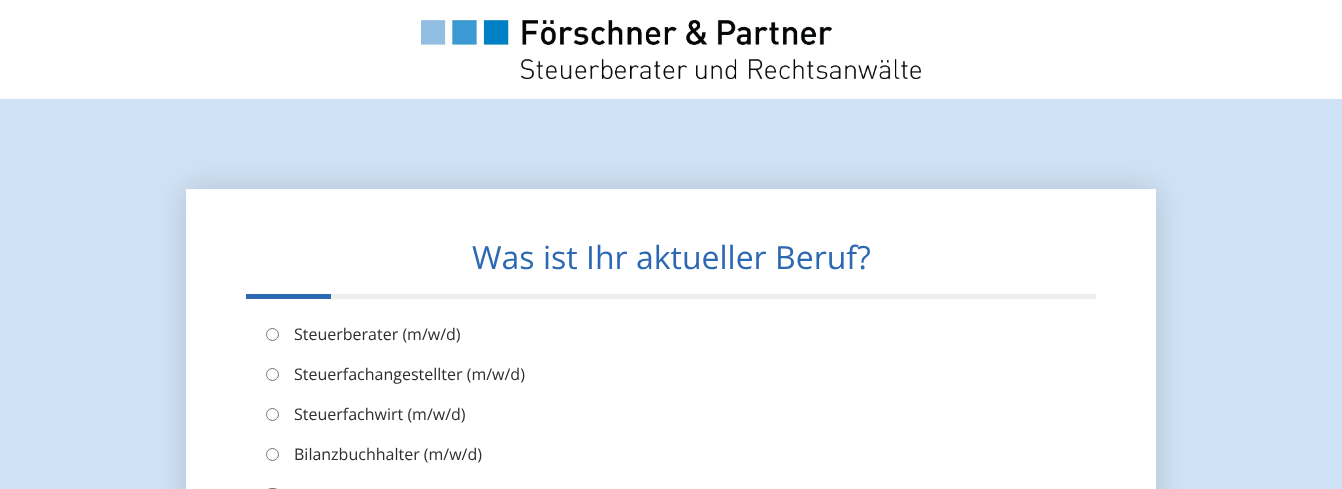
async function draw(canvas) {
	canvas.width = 1342;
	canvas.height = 489;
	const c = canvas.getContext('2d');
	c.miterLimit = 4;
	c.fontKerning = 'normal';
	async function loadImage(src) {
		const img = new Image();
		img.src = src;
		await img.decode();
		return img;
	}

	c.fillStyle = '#fff';
	c.fillRect(0, 0, 1342, 489);
	c.drawImage(await loadImage('img1.png'), 421, 20, 500, 59);
	c.fillStyle = '#d0e2f5';
	c.fillRect(0, 99, 1342, 390);
	c.fillStyle = '#00000026';
	c.filter = 'blur(15px)';
	c.beginPath();
	c.rect(186, 189, 970, 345);
	c.fill();
	c.filter = 'none';
	c.fillStyle = '#fff';
	c.fillRect(186, 189, 970, 300);
	c.font = '32px Open Sans';
	c.fillStyle = '#2d68b2';
	c.fillText('Was ist Ihr aktueller Beruf?', 472, 269);
	c.fillStyle = '#eee';
	c.fillRect(331, 294, 765, 5);
	c.fillStyle = '#2d68b2';
	c.fillRect(246, 294, 85, 5);
	c.beginPath();
	c.arc(272.5, 334.5, 6, 0, 2 * Math.PI);
	c.strokeStyle = '#767676';
	c.stroke();
	c.font = '16px Open Sans';
	c.fillStyle = '#2d2d2d';
	c.fillText('Steuerberater (m/w/d)', 294, 340);
	c.beginPath();
	c.arc(272.5, 374.5, 6, 0, 2 * Math.PI);
	c.stroke();
	c.fillText('Steuerfachangestellter (m/w/d)', 294, 380);
	c.beginPath();
	c.arc(272.5, 414.5, 6, 0, 2 * Math.PI);
	c.stroke();
	c.fillText('Steuerfachwirt (m/w/d)', 294, 420);
	c.beginPath();
	c.arc(272.5, 454.5, 6, 0, 2 * Math.PI);
	c.stroke();
	c.fillText('Bilanzbuchhalter (m/w/d)', 294, 460);
	c.beginPath();
	c.roundRect(266.5, 488.5, 12, 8, 6);
	c.stroke();
}

draw(document.querySelector('canvas'));
